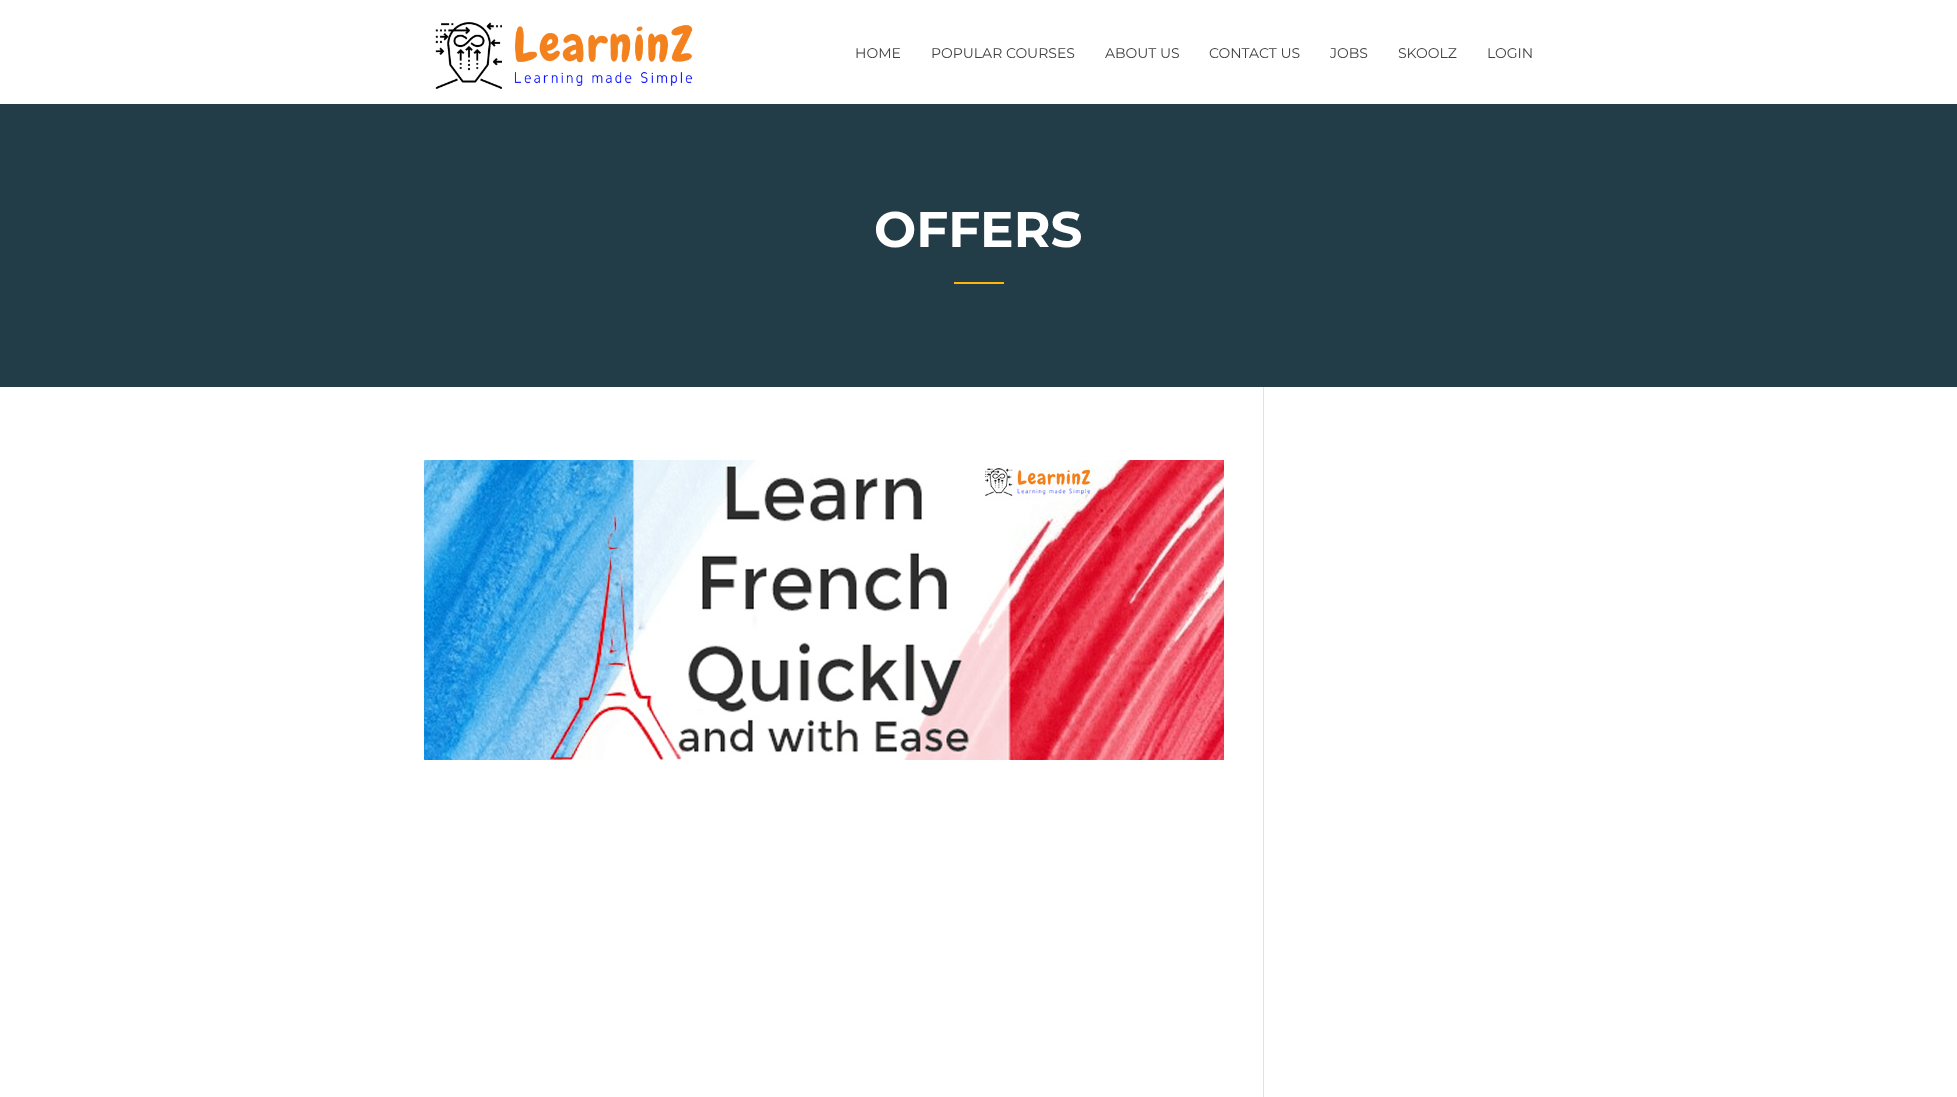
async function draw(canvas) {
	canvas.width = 1957;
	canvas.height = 1097;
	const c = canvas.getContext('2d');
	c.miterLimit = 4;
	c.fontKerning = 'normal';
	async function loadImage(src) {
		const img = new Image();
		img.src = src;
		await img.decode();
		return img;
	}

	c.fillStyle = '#fff';
	c.fillRect(0, 0, 1957, 1097);
	c.drawImage(await loadImage('img1.png'), 435, 22, 258, 67);
	c.font = '14px Montserrat';
	c.fillStyle = '#404040';
	for (const [text, x, y] of [
		['HOME', 855, 58],
		['POPULAR COURSES', 931, 58],
		['ABOUT US', 1105, 58],
		['CONTACT US', 1209, 58],
		['JOBS', 1330, 58],
		['SKOOLZ', 1398, 58],
		['LOGIN', 1487, 58],
	]) {
		c.fillText(text, x, y);
	}
	c.fillStyle = '#223c48';
	c.fillRect(0, 104, 1957, 283);
	c.font = 'bold 50px Montserrat';
	c.fillStyle = '#fff';
	c.fillText('OFFERS', 874, 247);
	c.fillStyle = '#ffb606';
	c.fillRect(954, 282, 50, 2);
	c.fillStyle = '#e1e2e4';
	c.fillRect(1263, 387, 1, 710);
	c.drawImage(await loadImage('img2.png'), 424, 460, 800, 300);
}

draw(document.querySelector('canvas'));
